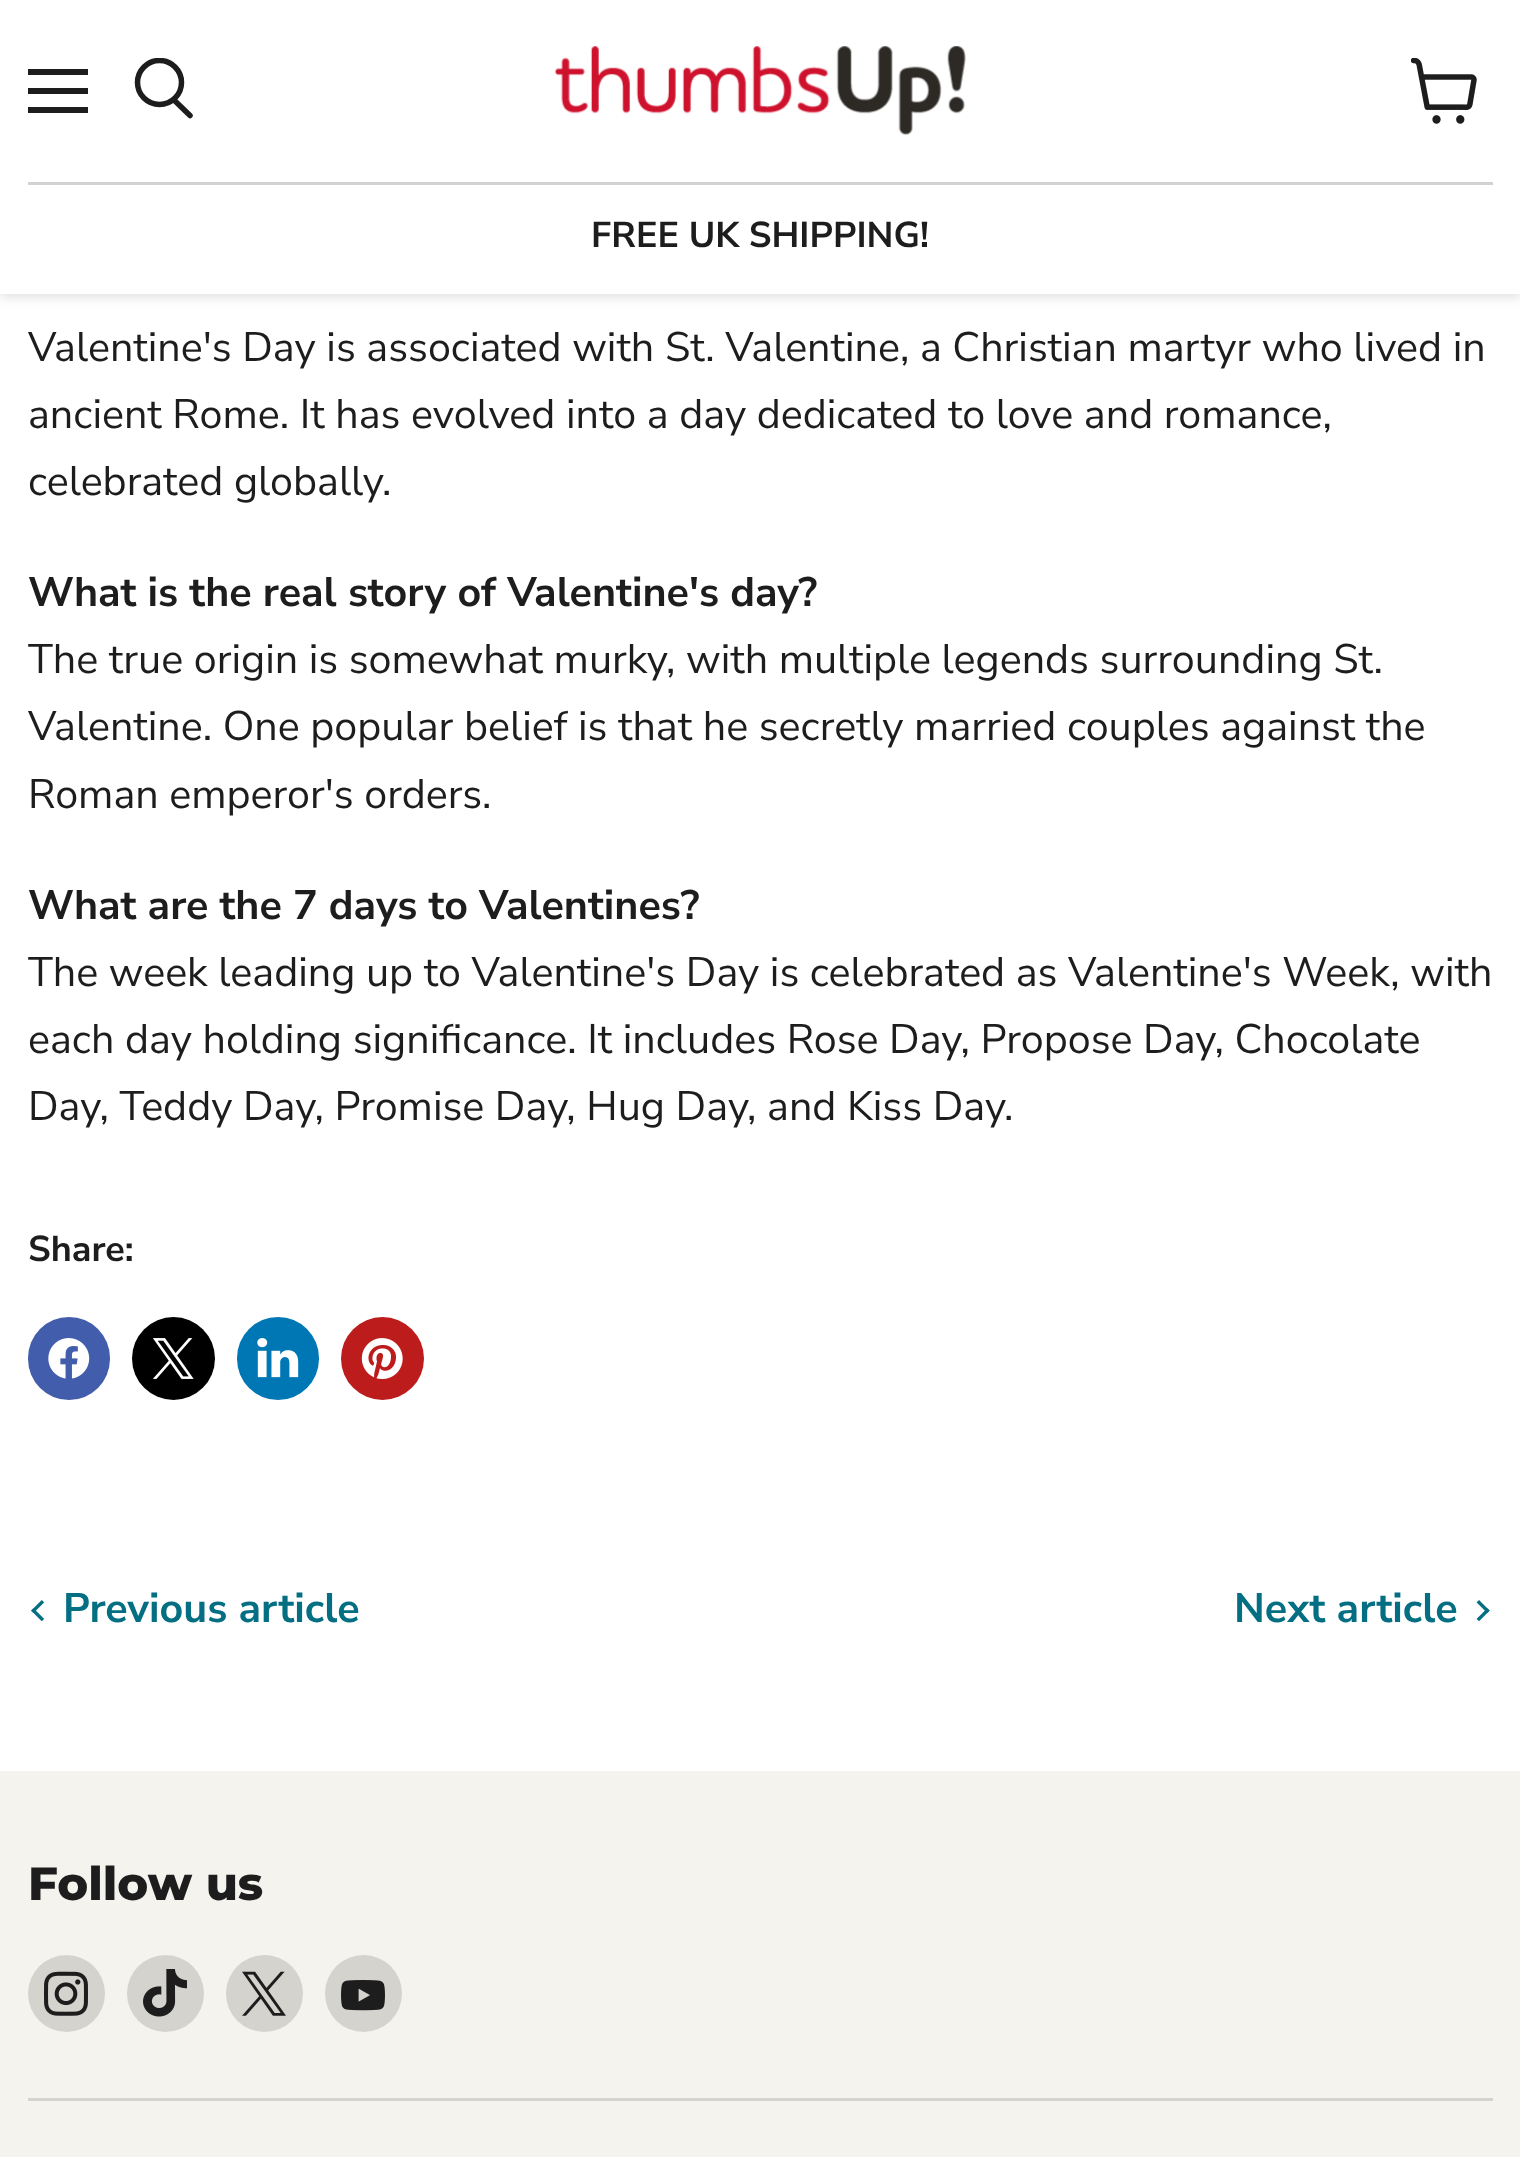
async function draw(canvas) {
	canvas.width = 1520;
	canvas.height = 2157;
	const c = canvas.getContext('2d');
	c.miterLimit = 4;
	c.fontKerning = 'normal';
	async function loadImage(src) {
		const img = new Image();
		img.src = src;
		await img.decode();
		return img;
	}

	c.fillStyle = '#fff';
	c.fillRect(0, 0, 1520, 2157);
	c.fillStyle = '#80808040';
	c.filter = 'blur(5.5px)';
	c.beginPath();
	c.rect(0, 3, 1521, 294);
	c.fill();
	c.filter = 'none';
	for (const [x, y, w, h, color] of [
		[0, 0, 1520, 294, '#fff'],
		[28, 69, 60, 6, '#1d1d1d'],
		[28, 88, 60, 6, '#1d1d1d'],
		[28, 107, 60, 6, '#1d1d1d'],
	]) {
		c.fillStyle = color;
		c.fillRect(x, y, w, h);
	}
	c.beginPath();
	c.moveTo(190, 115.5);
	c.lineTo(174.5, 100.5);
	c.strokeStyle = '#1d1d1d';
	c.lineWidth = 5.5;
	c.lineCap = 'round';
	c.stroke();
	c.save();
	c.beginPath();
	c.rect(132, 58, 63, 66);
	c.clip();
	c.beginPath();
	c.arc(159.5, 82.5, 22, 0, 2 * Math.PI);
	c.stroke();
	c.restore();
	c.drawImage(await loadImage('img1.png'), 1411, 58, 66, 66);
	c.drawImage(await loadImage('img2.png'), 554, 46, 412, 89);
	c.fillStyle = '#d2d2d2';
	c.fillRect(28, 182, 1465, 3);
	c.font = 'bold 36px Nunito Sans';
	c.fillStyle = '#1d1d1d';
	c.fillText('FREE UK SHIPPING!', 591, 247);
	c.font = '41.25px Nunito Sans';
	for (const [text, x, y] of [
		['Valentine\'s Day is associated with St. Valentine, a Christian martyr who lived in', 28, 361],
		['ancient Rome. It has evolved into a day dedicated to love and romance,', 28, 428],
		['celebrated globally.', 28, 495],
	]) {
		c.fillText(text, x, y);
	}
	c.font = 'bold 41.25px Nunito Sans';
	c.fillText('What is the real story of Valentine\'s day?', 28, 606);
	c.font = '41.25px Nunito Sans';
	for (const [text, x, y] of [
		['The true origin is somewhat murky, with multiple legends surrounding St.', 28, 673],
		['Valentine. One popular belief is that he secretly married couples against the', 28, 740],
		['Roman emperor\'s orders.', 28, 808],
	]) {
		c.fillText(text, x, y);
	}
	c.font = 'bold 41.25px Nunito Sans';
	c.fillText('What are the 7 days to Valentines?', 28, 919);
	c.font = '41.25px Nunito Sans';
	for (const [text, x, y] of [
		['The week leading up to Valentine\'s Day is celebrated as Valentine\'s Week, with', 28, 986],
		['each day holding significance. It includes Rose Day, Propose Day, Chocolate', 28, 1053],
		['Day, Teddy Day, Promise Day, Hug Day, and Kiss Day.', 28, 1120],
	]) {
		c.fillText(text, x, y);
	}
	c.font = 'bold 36px Nunito Sans';
	c.fillText('Share:', 28, 1261);
	c.fillStyle = '#425dab';
	c.beginPath();
	c.roundRect(28, 1317, 82, 83, 41);
	c.fill();
	c.drawImage(await loadImage('img3.png'), 48, 1338, 42, 41);
	c.fillStyle = '#000';
	c.beginPath();
	c.arc(173.5, 1358.5, 41.5, 0, 2 * Math.PI);
	c.fill();
	c.drawImage(await loadImage('img4.png'), 152, 1338, 42, 41);
	c.fillStyle = '#0077b5';
	c.beginPath();
	c.roundRect(237, 1317, 82, 83, 41);
	c.fill();
	c.drawImage(await loadImage('img5.png'), 257, 1338, 42, 40);
	c.fillStyle = '#bd1c1c';
	c.beginPath();
	c.arc(382.5, 1358.5, 41.5, 0, 2 * Math.PI);
	c.fill();
	c.drawImage(await loadImage('img6.png'), 361, 1338, 42, 41);
	c.drawImage(await loadImage('img7.png'), 31, 1600, 14, 22);
	c.font = 'bold 41.25px Nunito Sans';
	c.fillStyle = '#046e82';
	c.fillText('Previous article', 63, 1622);
	c.fillText('Next article', 1234, 1622);
	c.drawImage(await loadImage('img8.png'), 1476, 1600, 14, 22);
	c.fillStyle = '#f5f3ed';
	c.fillRect(0, 1771, 1520, 386);
	c.fillStyle = '#d5d3ce';
	c.fillRect(28, 2098, 1465, 3);
	c.font = '800 46.5px Montserrat';
	c.fillStyle = '#1d1d1d';
	c.fillText('Follow us', 28, 1900);
	c.fillStyle = '#d5d3ce';
	c.beginPath();
	c.arc(66.5, 1993.5, 38.5, 0, 2 * Math.PI);
	c.fill();
	c.drawImage(await loadImage('img9.png'), 44, 1971, 44, 45);
	c.beginPath();
	c.arc(165.5, 1993.5, 38.5, 0, 2 * Math.PI);
	c.fill();
	c.drawImage(await loadImage('img10.png'), 143, 1969, 44, 48);
	c.beginPath();
	c.arc(264.5, 1993.5, 38.5, 0, 2 * Math.PI);
	c.fill();
	c.drawImage(await loadImage('img11.png'), 242, 1971, 44, 45);
	c.beginPath();
	c.arc(363.5, 1993.5, 38.5, 0, 2 * Math.PI);
	c.fill();
	c.drawImage(await loadImage('img12.png'), 341, 1980, 44, 31);
}

draw(document.querySelector('canvas'));
